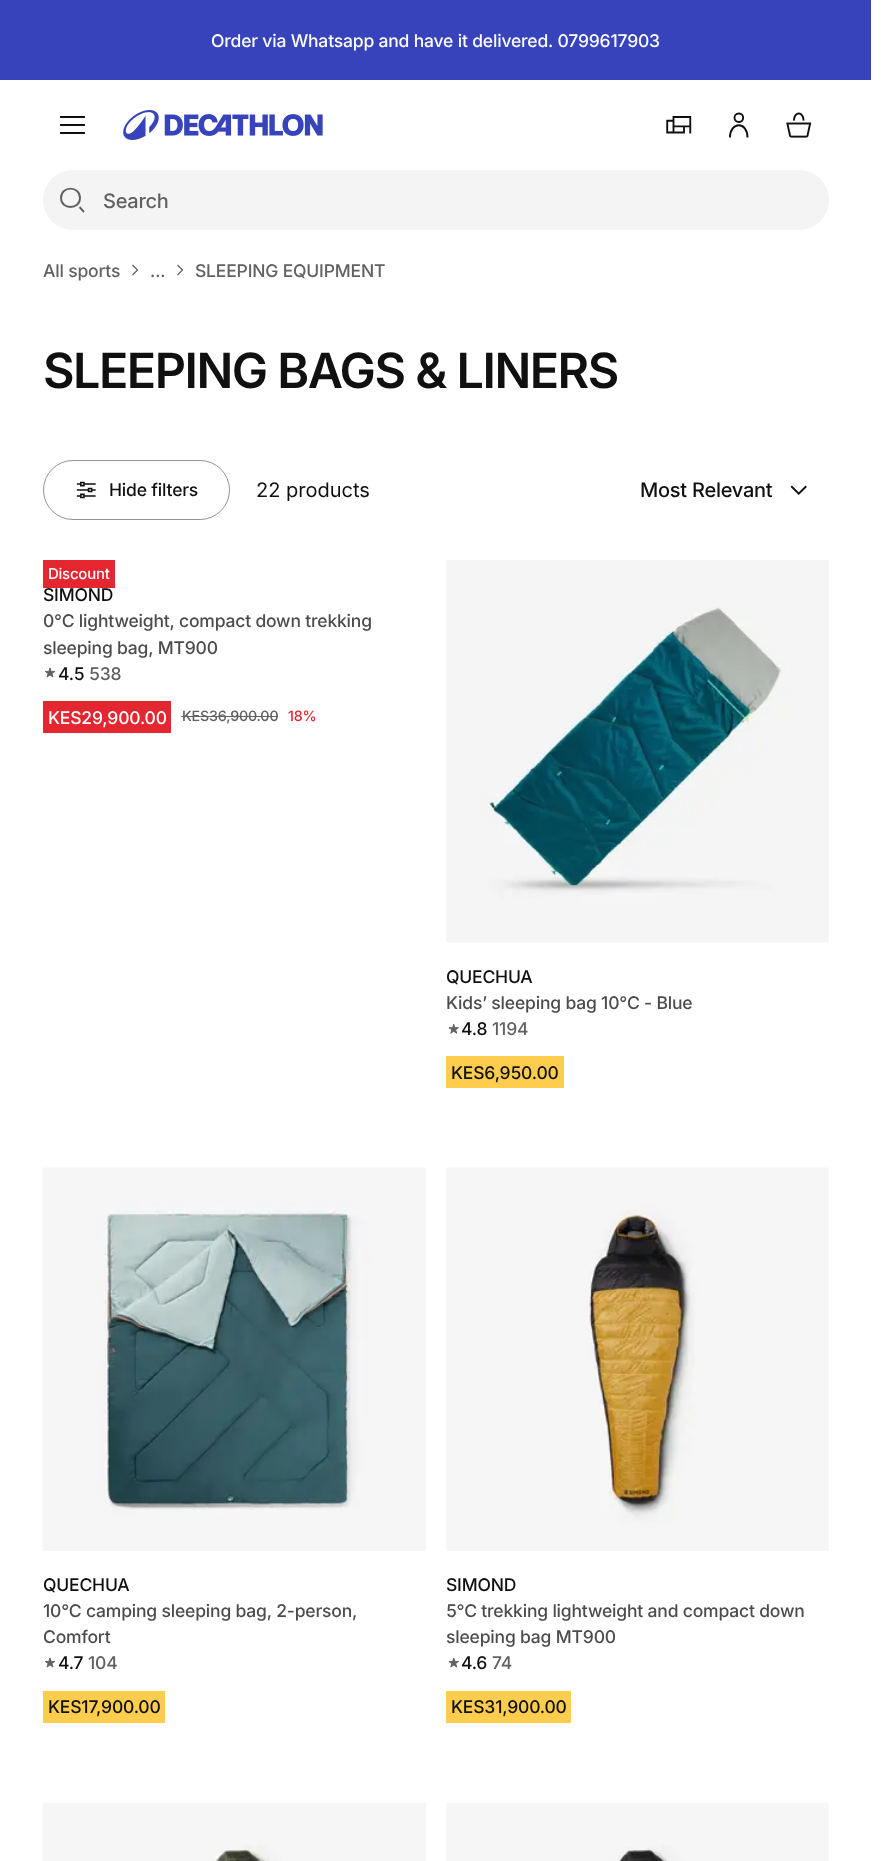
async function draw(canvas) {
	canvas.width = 889;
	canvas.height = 1861;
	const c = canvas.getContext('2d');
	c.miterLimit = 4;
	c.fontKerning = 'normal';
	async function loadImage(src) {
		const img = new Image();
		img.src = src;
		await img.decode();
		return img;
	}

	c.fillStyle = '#fff';
	c.fillRect(0, 0, 889, 1861);
	c.fillStyle = '#3643ba';
	c.fillRect(0, 0, 871, 80);
	c.letterSpacing = '-0.18px';
	c.font = '500 17.5px Inter';
	c.fillStyle = '#fff';
	c.fillText('Order via Whatsapp and have it delivered. 0799617903', 211, 47);
	c.beginPath();
	c.moveTo(61, 125);
	c.lineTo(84, 125);
	c.moveTo(61, 117);
	c.lineTo(84, 117);
	c.moveTo(61, 133);
	c.lineTo(84, 133);
	c.strokeStyle = '#101010';
	c.lineWidth = 1.9;
	c.lineCap = 'square';
	c.stroke();
	c.drawImage(await loadImage('img1.png'), 123, 110, 200, 30);
	c.drawImage(await loadImage('img2.png'), 666, 116, 26, 18);
	c.beginPath();
	c.moveTo(730, 137.5);
	c.bezierCurveTo(730, 121.5, 747.5, 121, 747.5, 137.5);
	c.moveTo(739, 113.5);
	c.bezierCurveTo(733, 113.5, 733, 122, 739, 122);
	c.bezierCurveTo(744.5, 122, 744.5, 113.5, 739, 113.5);
	c.closePath();
	c.lineCap = 'butt';
	c.stroke();
	c.drawImage(await loadImage('img3.png'), 786, 112, 26, 26);
	c.fillStyle = '#f5f4f5';
	c.beginPath();
	c.roundRect(43, 170, 786, 60, 30);
	c.fill();
	c.beginPath();
	c.moveTo(84, 212);
	c.lineTo(79.5, 207);
	c.moveTo(80, 198);
	c.bezierCurveTo(80, 210, 61, 210, 61, 198);
	c.bezierCurveTo(61, 185.5, 80, 185.5, 80, 198);
	c.closePath();
	c.strokeStyle = '#616161';
	c.stroke();
	c.letterSpacing = '-0.25px';
	c.font = '500 20px Inter';
	c.fillStyle = '#616161';
	c.fillText('Search', 103, 208);
	c.letterSpacing = '-0.18px';
	c.font = '500 17.5px Inter';
	c.fillText('All sports', 43, 277);
	c.drawImage(await loadImage('img4.png'), 132, 264, 7, 12);
	c.fillText('...', 150, 277);
	c.drawImage(await loadImage('img4.png'), 177, 264, 7, 12);
	c.fillText('SLEEPING EQUIPMENT', 195, 277);
	c.letterSpacing = '-1.5px';
	c.font = '600 48.5px Inter';
	c.fillStyle = '#101010';
	c.fillText('SLEEPING BAGS & LINERS', 43, 388);
	c.beginPath();
	c.roundRect(43.5, 460.5, 186, 59, 29.5);
	c.strokeStyle = '#949494';
	c.lineWidth = 1;
	c.stroke();
	c.drawImage(await loadImage('img5.png'), 76, 481, 20, 18);
	c.letterSpacing = '-0.18px';
	c.font = '500 17.5px Inter';
	c.fillText('Hide filters', 109, 496);
	c.letterSpacing = '0px';
	c.font = '20px Inter';
	c.fillText('22 products', 256, 497);
	c.letterSpacing = '-0.25px';
	c.font = '500 20px Inter';
	c.fillText('Most Relevant', 640, 497);
	c.drawImage(await loadImage('img6.png'), 790, 485, 17, 10);
	c.fillStyle = '#e3262f';
	c.fillRect(43, 560, 72, 28);
	c.font = '500 15px Inter';
	c.fillStyle = '#fff';
	c.fillText('Discount', 48, 579);
	c.letterSpacing = '-0.18px';
	c.font = '500 17.5px Inter';
	c.fillStyle = '#101010';
	c.fillText('SIMOND', 43, 601);
	c.fillStyle = '#4c4c4c';
	c.fillText('0°C lightweight, compact down trekking', 43, 627);
	c.fillText('sleeping bag, MT900', 43, 654);
	c.drawImage(await loadImage('img7.png'), 45, 667, 10, 11);
	c.fillStyle = '#101010';
	c.fillText('4.5', 58, 680);
	c.fillStyle = '#616161';
	c.fillText('538', 89, 680);
	c.fillStyle = '#e3262f';
	c.fillRect(43, 701, 128, 32);
	c.fillStyle = '#fff';
	c.fillText('KES29,900.00', 48, 724);
	c.font = '500 14.25px Inter';
	c.fillStyle = '#616161';
	c.fillText('KES36,900.00', 182, 721);
	c.fillRect(181, 716, 97, 1);
	c.fillStyle = '#e3262f';
	c.fillText('18%', 288, 721);
	c.drawImage(await loadImage('img8.png'), 446, 560, 383, 383);
	c.font = '500 17.5px Inter';
	c.fillStyle = '#101010';
	c.fillText('QUECHUA', 446, 983);
	c.fillStyle = '#4c4c4c';
	c.fillText('Kids’ sleeping bag 10°C - Blue', 446, 1009);
	c.drawImage(await loadImage('img9.png'), 448, 1024, 11, 10);
	c.fillStyle = '#101010';
	c.fillText('4.8', 461, 1035);
	c.fillStyle = '#616161';
	c.fillText('1194', 492, 1035);
	c.fillStyle = '#ffcd4e';
	c.fillRect(446, 1056, 118, 32);
	c.fillStyle = '#101010';
	c.fillText('KES6,950.00', 451, 1079);
	c.drawImage(await loadImage('img10.png'), 42, 1167, 384, 384);
	c.fillText('QUECHUA', 43, 1591);
	c.fillStyle = '#4c4c4c';
	c.fillText('10°C camping sleeping bag, 2-person,', 43, 1617);
	c.fillText('Comfort', 43, 1643);
	c.drawImage(await loadImage('img7.png'), 45, 1657, 10, 11);
	c.fillStyle = '#101010';
	c.fillText('4.7', 58, 1669);
	c.fillStyle = '#616161';
	c.fillText('104', 88, 1669);
	c.fillStyle = '#ffcd4e';
	c.fillRect(43, 1691, 122, 32);
	c.fillStyle = '#101010';
	c.fillText('KES17,900.00', 48, 1713);
	c.drawImage(await loadImage('img11.png'), 446, 1167, 383, 384);
	c.fillText('SIMOND', 446, 1591);
	c.fillStyle = '#4c4c4c';
	c.fillText('5°C trekking lightweight and compact down', 446, 1617);
	c.fillText('sleeping bag MT900', 446, 1643);
	c.drawImage(await loadImage('img12.png'), 448, 1657, 11, 11);
	c.fillStyle = '#101010';
	c.fillText('4.6', 461, 1669);
	c.fillStyle = '#616161';
	c.fillText('74', 492, 1669);
	c.fillStyle = '#ffcd4e';
	c.fillRect(446, 1691, 125, 32);
	c.fillStyle = '#101010';
	c.fillText('KES31,900.00', 451, 1713);
	c.drawImage(await loadImage('img13.png'), 42, 1802, 384, 59);
	c.drawImage(await loadImage('img14.png'), 446, 1802, 383, 59);
}

draw(document.querySelector('canvas'));
